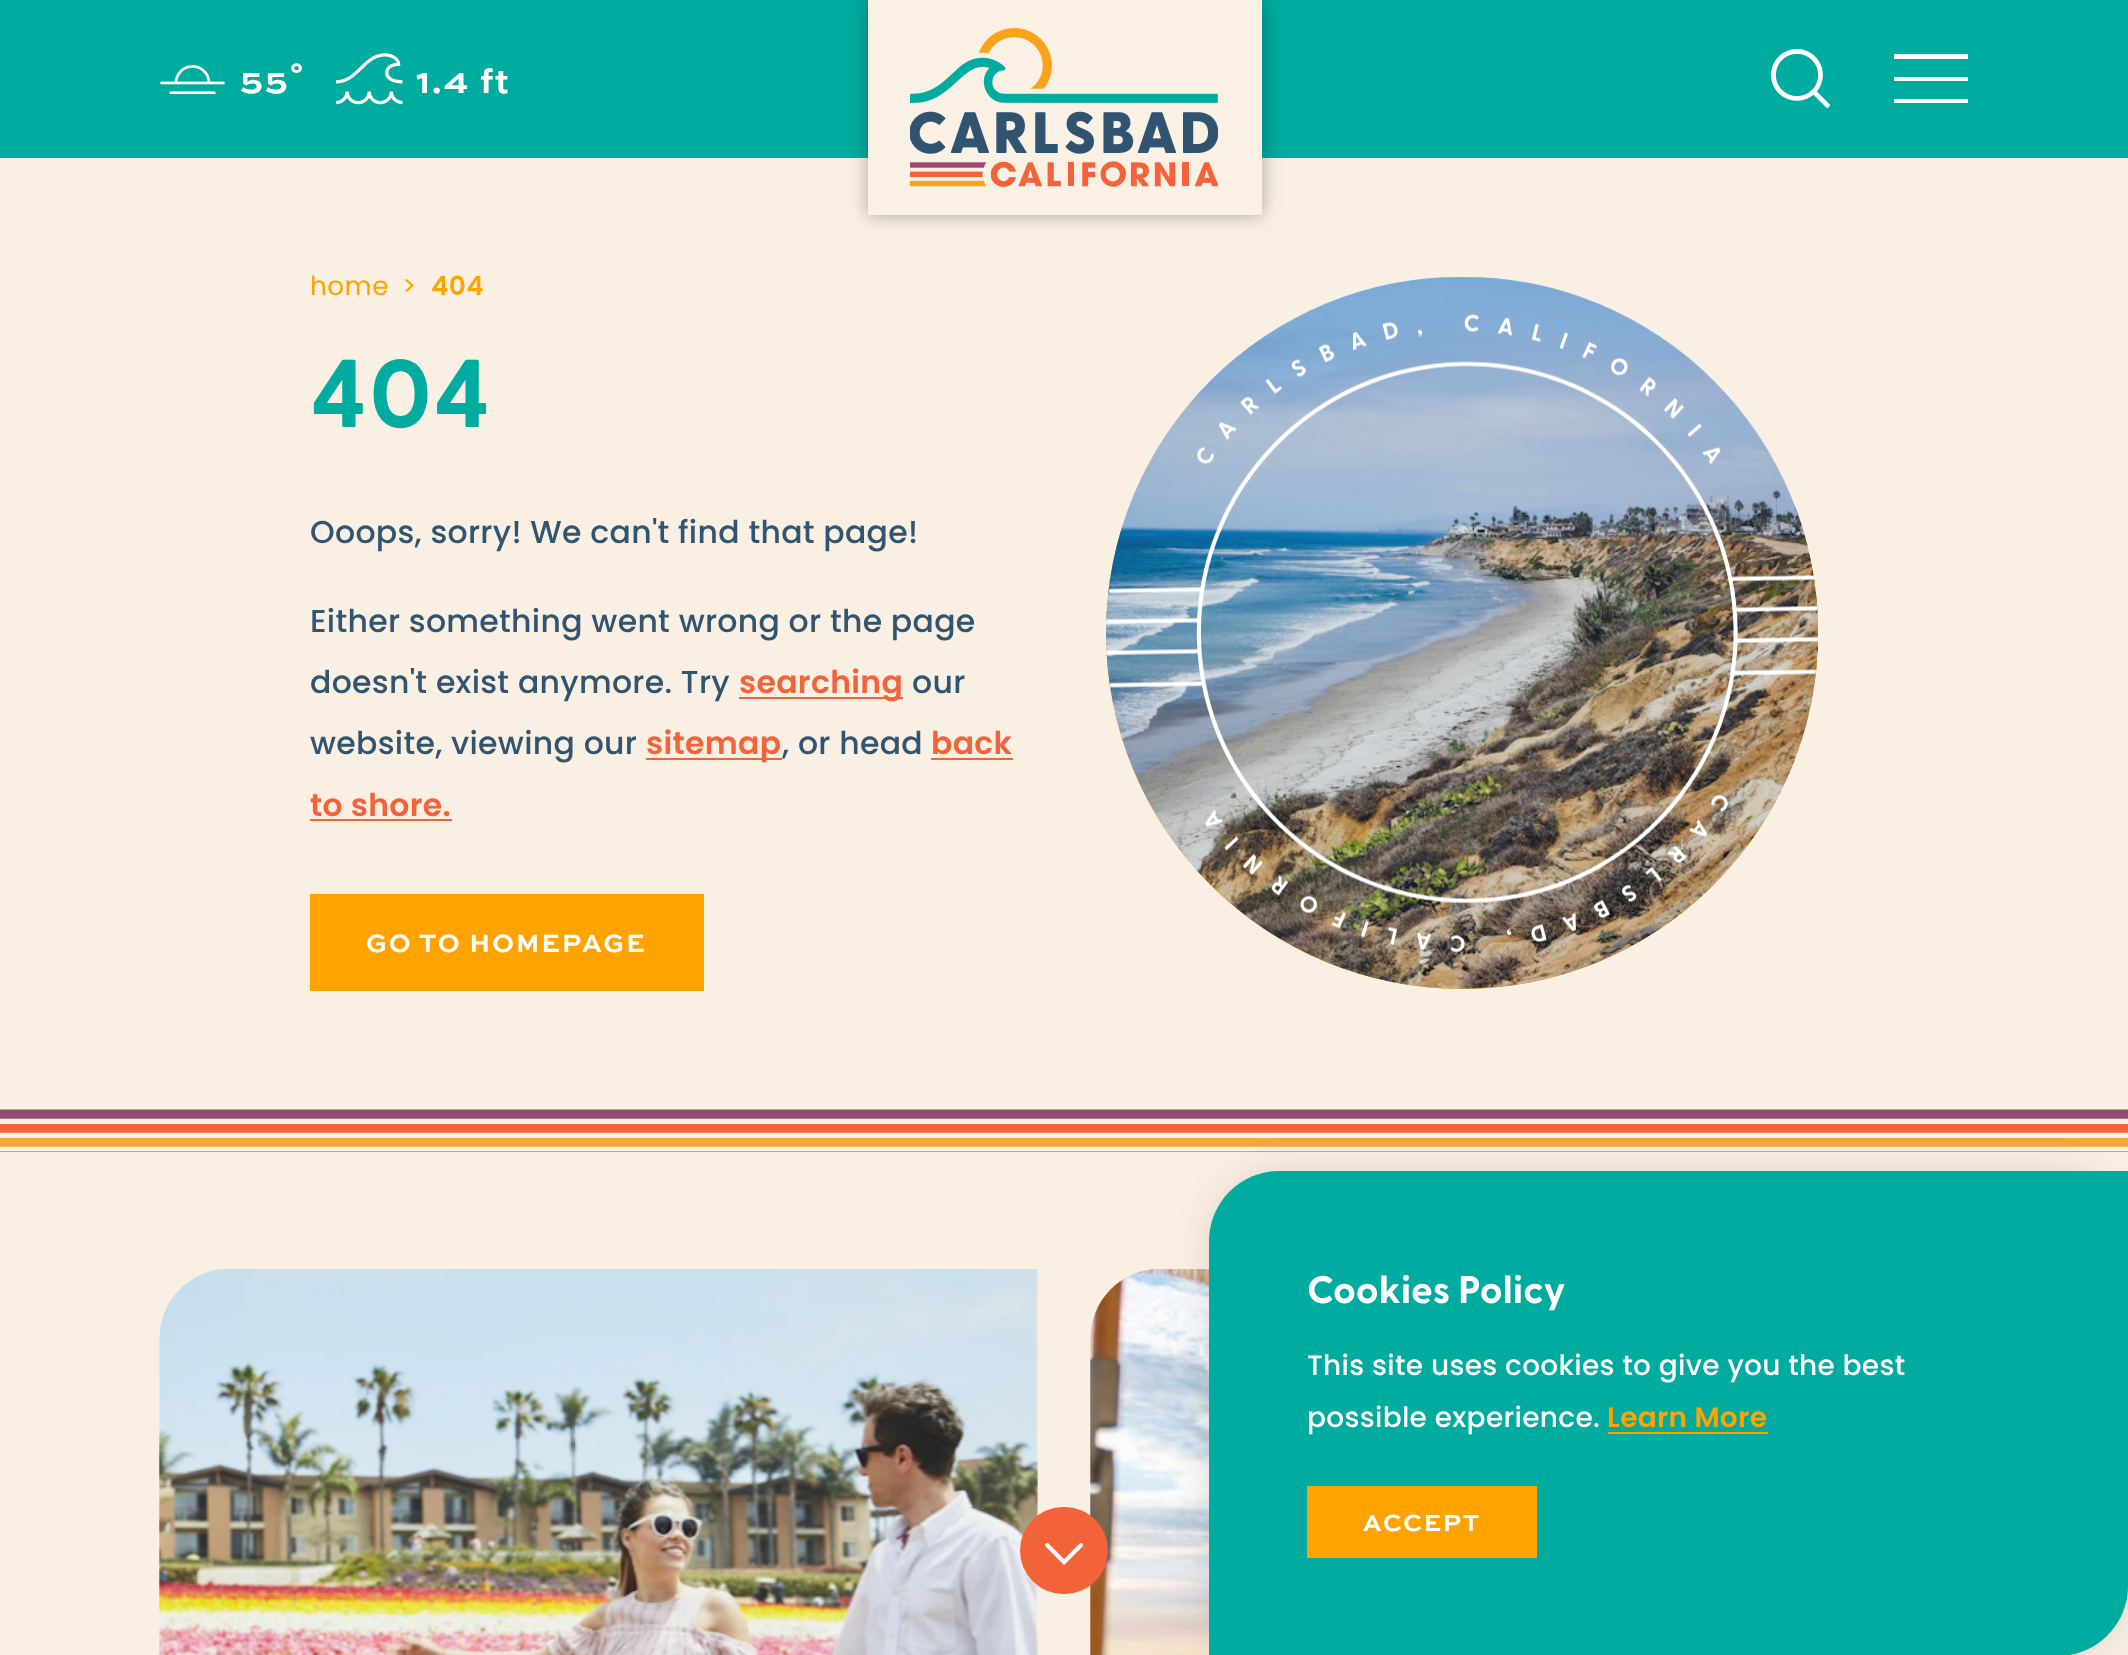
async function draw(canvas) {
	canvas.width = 2128;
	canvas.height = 1655;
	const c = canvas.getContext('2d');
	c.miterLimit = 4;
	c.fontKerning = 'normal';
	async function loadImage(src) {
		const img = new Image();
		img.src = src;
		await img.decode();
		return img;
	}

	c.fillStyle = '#f9efe2';
	c.fillRect(0, 0, 2128, 1655);
	c.fillStyle = '#00ab9f';
	c.fillRect(0, 0, 2128, 158);
	c.drawImage(await loadImage('img1.png'), 160, 65, 65, 30);
	c.letterSpacing = '1.75px';
	c.font = 'bold 26.25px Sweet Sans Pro';
	c.fillStyle = '#fff';
	c.fillText('°', 290, 80);
	c.font = 'bold 35px Sweet Sans Pro';
	c.fillText('55', 240, 93);
	c.drawImage(await loadImage('img2.png'), 336, 53, 67, 52);
	c.fillText('1.4 ft', 416, 93);
	c.fillStyle = '#0000004d';
	c.filter = 'blur(9px)';
	c.beginPath();
	c.rect(868, 0, 394, 215);
	c.fill();
	c.filter = 'none';
	c.fillStyle = '#faf0e3';
	c.fillRect(868, 0, 394, 215);
	c.drawImage(await loadImage('img3.png'), 910, 28, 308, 159);
	c.drawImage(await loadImage('img4.png'), 1771, 49, 60, 60);
	c.fillStyle = '#fff';
	c.beginPath();
	c.moveTo(1894, 54);
	c.lineTo(1968, 54);
	c.lineTo(1968, 59);
	c.lineTo(1894, 59);
	c.closePath();
	c.moveTo(1894, 77);
	c.lineTo(1968, 77);
	c.lineTo(1968, 81);
	c.lineTo(1894, 81);
	c.closePath();
	c.moveTo(1894, 99);
	c.lineTo(1968, 99);
	c.lineTo(1968, 103);
	c.lineTo(1894, 103);
	c.closePath();
	c.fill('evenodd');
	c.letterSpacing = '0.5px';
	c.font = '26.25px Poppins';
	c.fillStyle = '#ffa300';
	c.fillText('home', 310, 295);
	c.fillText('>', 402, 295);
	c.font = '600 26.25px Poppins';
	c.fillText('404', 431, 295);
	c.letterSpacing = '2.5px';
	c.font = 'bold 96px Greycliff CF';
	c.fillStyle = '#00ab9f';
	c.fillText('404', 310, 427);
	c.letterSpacing = '0.3px';
	c.font = '500 31.5px Poppins';
	c.fillStyle = '#315470';
	for (const [text, x, y] of [
		['Ooops, sorry! We can\'t find that page!', 310, 543],
		['Either something went wrong or the page', 310, 632],
		['doesn\'t exist anymore. Try', 310, 693],
	]) {
		c.fillText(text, x, y);
	}
	c.fillStyle = '#f3633a';
	c.fillRect(739, 697, 164, 2);
	c.font = '600 31.5px Poppins';
	c.fillText('searching', 739, 693);
	c.font = '500 31.5px Poppins';
	c.fillStyle = '#315470';
	c.fillText('our', 912, 693);
	c.fillText('website, viewing our', 310, 754);
	c.fillStyle = '#f3633a';
	c.fillRect(646, 758, 136, 2);
	c.font = '600 31.5px Poppins';
	c.fillText('sitemap', 646, 754);
	c.font = '500 31.5px Poppins';
	c.fillStyle = '#315470';
	c.fillText(', or head', 782, 754);
	c.font = '600 31.5px Poppins';
	c.fillStyle = '#f3633a';
	c.fillText('back', 931, 754);
	c.fillRect(931, 758, 82, 2);
	c.fillText('to shore.', 310, 816);
	c.fillRect(310, 819, 142, 2);
	c.fillStyle = '#ffa300';
	c.fillRect(310, 894, 394, 97);
	c.letterSpacing = '1.8px';
	c.font = 'bold 26.25px Sweet Sans Pro';
	c.fillStyle = '#fff';
	c.fillText('GO TO HOMEPAGE', 366, 952);
	c.fillStyle = '#ffa300';
	c.beginPath();
	c.arc(1462, 633, 356, 0, 2 * Math.PI);
	c.fill();
	c.drawImage(await loadImage('img5.png'), 1106, 277, 712, 712);
	c.fillStyle = '#31547033';
	c.beginPath();
	c.arc(1462, 633, 356, 0, 2 * Math.PI);
	c.fill();
	c.drawImage(await loadImage('img6.png'), 1106, 314, 712, 639);
	c.drawImage(await loadImage('img7.png'), 0, 1109, 2128, 43);
	c.fillStyle = '#fff';
	c.beginPath();
	c.moveTo(229, 1269);
	c.lineTo(1038, 1269);
	c.lineTo(1038, 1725);
	c.lineTo(159, 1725);
	c.lineTo(159, 1339);
	c.bezierCurveTo(159, 1300.5, 190.5, 1269, 229, 1269);
	c.closePath();
	c.fill();
	c.drawImage(await loadImage('img8.png'), 159, 1269, 879, 386);
	c.beginPath();
	c.moveTo(1160, 1269);
	c.lineTo(1969, 1269);
	c.lineTo(1969, 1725);
	c.lineTo(1090, 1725);
	c.lineTo(1090, 1339);
	c.bezierCurveTo(1090, 1300.5, 1121.5, 1269, 1160, 1269);
	c.closePath();
	c.fill();
	c.drawImage(await loadImage('img9.png'), 1090, 1269, 119, 386);
	c.fillStyle = '#0000001a';
	c.filter = 'blur(17.5px)';
	c.beginPath();
	c.roundRect(1209, 1171, 919, 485, 70);
	c.fill();
	c.filter = 'none';
	c.fillStyle = '#00ab9f';
	c.beginPath();
	c.moveTo(1279, 1171);
	c.lineTo(2128, 1171);
	c.lineTo(2128, 1586);
	c.bezierCurveTo(2128, 1624.5, 2096.5, 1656, 2058, 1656);
	c.lineTo(1209, 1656);
	c.lineTo(1209, 1241);
	c.bezierCurveTo(1209, 1202.5, 1240.5, 1171, 1279, 1171);
	c.closePath();
	c.fill();
	c.letterSpacing = '0.4px';
	c.font = 'bold 38.5px Greycliff CF';
	c.fillStyle = '#fff';
	c.fillText('Cookies Policy', 1307, 1303);
	c.letterSpacing = '0.3px';
	c.font = '500 28px Poppins';
	c.fillText('This site uses cookies to give you the best', 1307, 1375);
	c.fillText('possible experience.', 1307, 1427);
	c.font = '600 28px Poppins';
	c.fillStyle = '#ffa300';
	c.fillText('Learn More', 1607, 1427);
	c.fillRect(1608, 1432, 160, 2);
	c.fillRect(1307, 1486, 230, 72);
	c.letterSpacing = '1.75px';
	c.font = 'bold 24.5px Sweet Sans Pro';
	c.fillStyle = '#fff';
	c.fillText('ACCEPT', 1363, 1531);
	c.fillStyle = '#f3633a';
	c.beginPath();
	c.roundRect(1020, 1507, 88, 87, 43.5);
	c.fill();
	c.drawImage(await loadImage('img10.png'), 1045, 1542, 38, 23);
}

draw(document.querySelector('canvas'));
